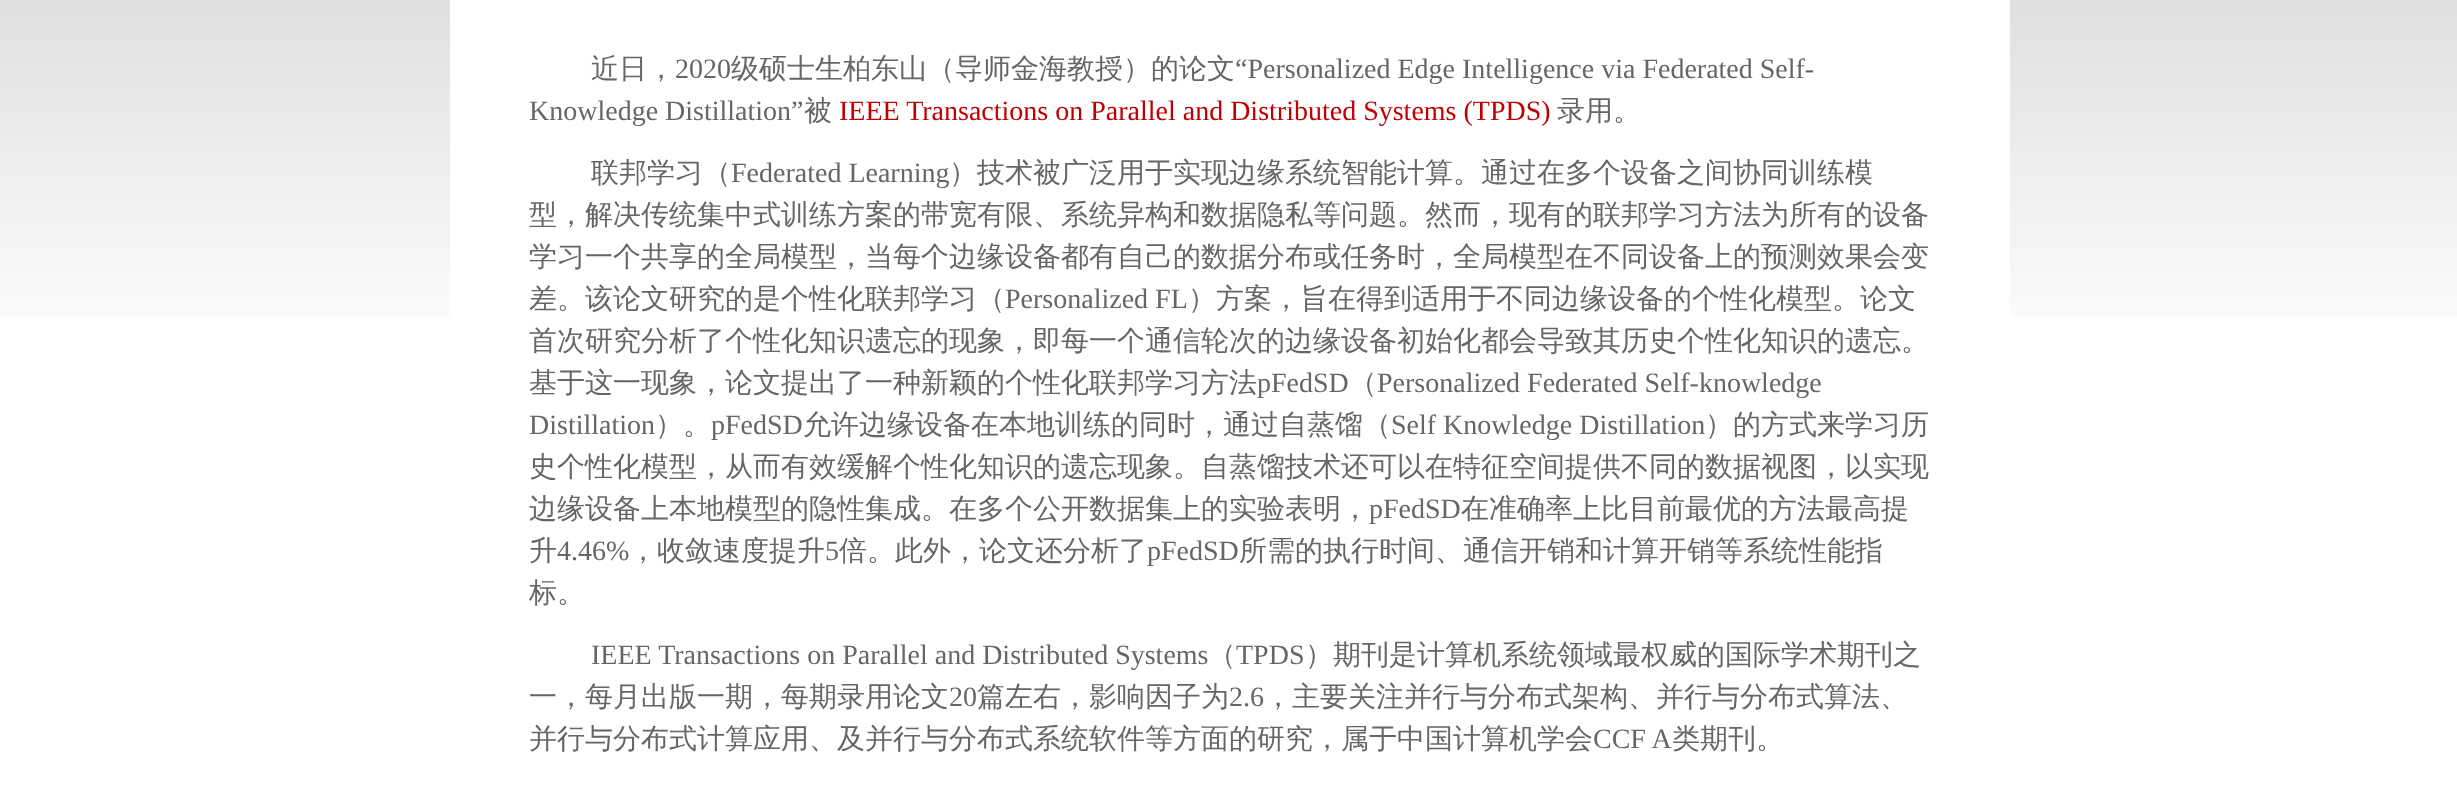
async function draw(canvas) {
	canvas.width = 2457;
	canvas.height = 796;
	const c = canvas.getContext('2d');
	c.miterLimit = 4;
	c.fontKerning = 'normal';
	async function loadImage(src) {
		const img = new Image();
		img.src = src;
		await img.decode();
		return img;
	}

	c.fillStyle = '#fff';
	c.fillRect(0, 0, 2457, 796);
	c.drawImage(await loadImage('img1.png'), 0, 0, 2457, 316);
	c.fillRect(450, 0, 1560, 316);
	c.font = '500 28px WenQuanYi Zen Hei';
	c.fillStyle = '#666';
	c.fillText('近日，', 591, 78);
	c.font = '28px Liberation Serif';
	c.fillText('2020', 675, 78);
	c.font = '500 28px WenQuanYi Zen Hei';
	c.fillText('级硕士生柏东山（导师金海教授）的论文', 731, 78);
	c.font = '28px Liberation Serif';
	c.fillText('“Personalized Edge Intelligence via Federated Self-', 1235, 78);
	c.fillText('Knowledge Distillation”', 529, 120);
	c.font = '500 28px WenQuanYi Zen Hei';
	c.fillText('被', 804, 120);
	c.font = '28px Liberation Serif';
	c.fillStyle = '#c00000';
	c.fillText('IEEE Transactions on Parallel and Distributed Systems (TPDS)', 839, 120);
	c.font = '500 28px WenQuanYi Zen Hei';
	c.fillStyle = '#666';
	c.fillText('录用。', 1557, 120);
	c.fillText('联邦学习（', 591, 182);
	c.font = '28px Liberation Serif';
	c.fillText('Federated Learning', 731, 182);
	c.font = '500 28px WenQuanYi Zen Hei';
	for (const [text, x, y] of [
		['）技术被广泛用于实现边缘系统智能计算。通过在多个设备之间协同训练模', 949, 182],
		['型，解决传统集中式训练方案的带宽有限、系统异构和数据隐私等问题。然而，现有的联邦学习方法为所有的设备', 529, 224],
		['学习一个共享的全局模型，当每个边缘设备都有自己的数据分布或任务时，全局模型在不同设备上的预测效果会变', 529, 266],
		['差。该论文研究的是个性化联邦学习（', 529, 308],
	]) {
		c.fillText(text, x, y);
	}
	c.font = '28px Liberation Serif';
	c.fillText('Personalized FL', 1005, 308);
	c.font = '500 28px WenQuanYi Zen Hei';
	for (const [text, x, y] of [
		['）方案，旨在得到适用于不同边缘设备的个性化模型。论文', 1188, 308],
		['首次研究分析了个性化知识遗忘的现象，即每一个通信轮次的边缘设备初始化都会导致其历史个性化知识的遗忘。', 529, 350],
		['基于这一现象，论文提出了一种新颖的个性化联邦学习方法', 529, 392],
	]) {
		c.fillText(text, x, y);
	}
	c.font = '28px Liberation Serif';
	c.fillText('pFedSD', 1257, 392);
	c.font = '500 28px WenQuanYi Zen Hei';
	c.fillText('（', 1349, 392);
	c.font = '28px Liberation Serif';
	c.fillText('Personalized Federated Self-knowledge', 1377, 392);
	c.fillText('Distillation', 529, 434);
	c.font = '500 28px WenQuanYi Zen Hei';
	c.fillText('）。', 655, 434);
	c.font = '28px Liberation Serif';
	c.fillText('pFedSD', 711, 434);
	c.font = '500 28px WenQuanYi Zen Hei';
	c.fillText('允许边缘设备在本地训练的同时，通过自蒸馏（', 803, 434);
	c.font = '28px Liberation Serif';
	c.fillText('Self Knowledge Distillation', 1391, 434);
	c.font = '500 28px WenQuanYi Zen Hei';
	for (const [text, x, y] of [
		['）的方式来学习历', 1705, 434],
		['史个性化模型，从而有效缓解个性化知识的遗忘现象。自蒸馏技术还可以在特征空间提供不同的数据视图，以实现', 529, 476],
		['边缘设备上本地模型的隐性集成。在多个公开数据集上的实验表明，', 529, 518],
	]) {
		c.fillText(text, x, y);
	}
	c.font = '28px Liberation Serif';
	c.fillText('pFedSD', 1369, 518);
	c.font = '500 28px WenQuanYi Zen Hei';
	c.fillText('在准确率上比目前最优的方法最高提', 1461, 518);
	c.fillText('升', 529, 560);
	c.font = '28px Liberation Serif';
	c.fillText('4.46%', 557, 560);
	c.font = '500 28px WenQuanYi Zen Hei';
	c.fillText('，收敛速度提升', 629, 560);
	c.font = '28px Liberation Serif';
	c.fillText('5', 825, 560);
	c.font = '500 28px WenQuanYi Zen Hei';
	c.fillText('倍。此外，论文还分析了', 839, 560);
	c.font = '28px Liberation Serif';
	c.fillText('pFedSD', 1147, 560);
	c.font = '500 28px WenQuanYi Zen Hei';
	c.fillText('所需的执行时间、通信开销和计算开销等系统性能指', 1239, 560);
	c.fillText('标。', 529, 602);
	c.font = '28px Liberation Serif';
	c.fillText('IEEE Transactions on Parallel and Distributed Systems', 591, 664);
	c.font = '500 28px WenQuanYi Zen Hei';
	c.fillText('（', 1208, 664);
	c.font = '28px Liberation Serif';
	c.fillText('TPDS', 1236, 664);
	c.font = '500 28px WenQuanYi Zen Hei';
	c.fillText('）期刊是计算机系统领域最权威的国际学术期刊之', 1305, 664);
	c.fillText('一，每月出版一期，每期录用论文', 529, 706);
	c.font = '28px Liberation Serif';
	c.fillText('20', 949, 706);
	c.font = '500 28px WenQuanYi Zen Hei';
	c.fillText('篇左右，影响因子为', 977, 706);
	c.font = '28px Liberation Serif';
	c.fillText('2.6', 1229, 706);
	c.font = '500 28px WenQuanYi Zen Hei';
	c.fillText('，主要关注并行与分布式架构、并行与分布式算法、', 1264, 706);
	c.fillText('并行与分布式计算应用、及并行与分布式系统软件等方面的研究，属于中国计算机学会', 529, 748);
	c.font = '28px Liberation Serif';
	c.fillText('CCF A', 1593, 748);
	c.font = '500 28px WenQuanYi Zen Hei';
	c.fillText('类期刊。', 1672, 748);
}

draw(document.querySelector('canvas'));
